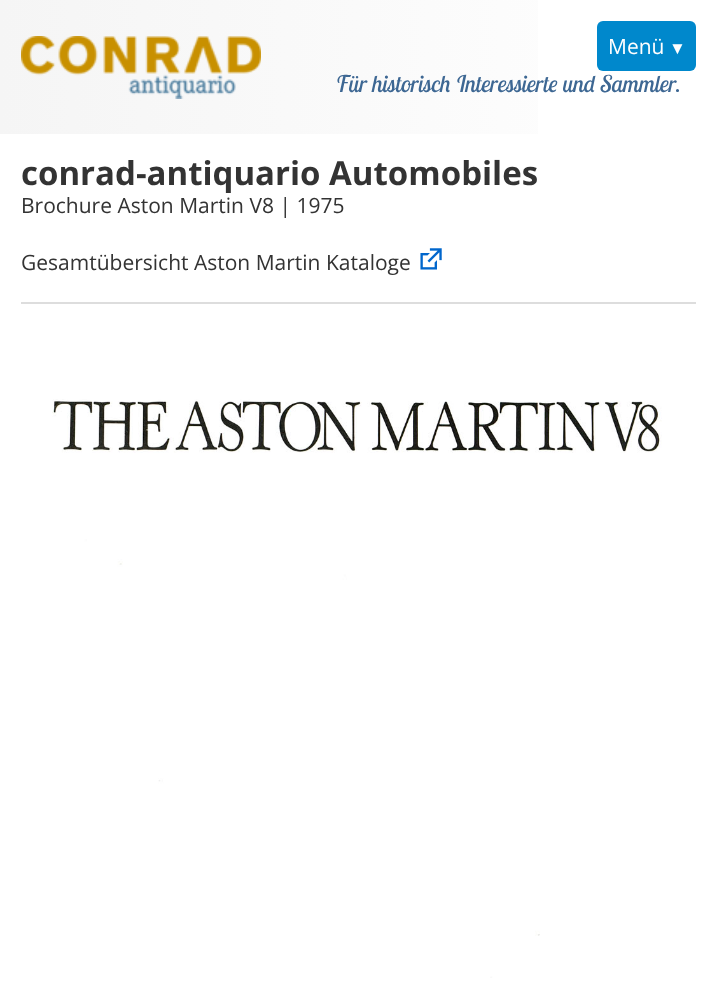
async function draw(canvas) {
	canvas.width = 717;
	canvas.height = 984;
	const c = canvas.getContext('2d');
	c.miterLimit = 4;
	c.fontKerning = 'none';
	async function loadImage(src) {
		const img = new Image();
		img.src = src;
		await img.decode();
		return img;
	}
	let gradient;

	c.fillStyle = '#fff';
	c.fillRect(0, 0, 717, 984);
	c.fillStyle = '#08c';
	c.beginPath();
	c.roundRect(597, 21, 99, 50, 6);
	c.fill();
	c.font = '21px Open Sans';
	c.fillStyle = '#fff';
	c.fillText('Menü', 608, 54);
	c.font = '17px Liberation Sans';
	c.fillText('▼', 669, 54);
	gradient = c.createLinearGradient(0, 67, 717, 67);
	gradient.addColorStop(0, '#f5f5f5');
	gradient.addColorStop(0.7, '#fcfcfc');
	gradient.addColorStop(1, '#fff');
	c.fillStyle = gradient;
	c.fillRect(0, 0, 538, 134);
	c.drawImage(await loadImage('img1.png'), 21, 36, 240, 63);
	c.font = 'italic 23.1px Lobster Two';
	c.fillStyle = '#3d6793';
	c.fillText('Für historisch Interessierte und Sammler.', 336, 92);
	c.font = 'bold 33px Open Sans';
	c.fillStyle = '#333';
	c.fillText('conrad-antiquario Automobiles', 21, 185);
	c.font = '21px Open Sans';
	c.fillText('Brochure Aston Martin V8 | 1975', 21, 213);
	c.fillText('Gesamtübersicht Aston Martin Kataloge', 21, 270);
	c.drawImage(await loadImage('img2.png'), 420, 248, 22, 22);
	c.fillStyle = '#ddd';
	c.fillRect(21, 302, 675, 2);
	c.drawImage(await loadImage('img3.png'), 52, 399, 610, 579);
}

draw(document.querySelector('canvas'));
